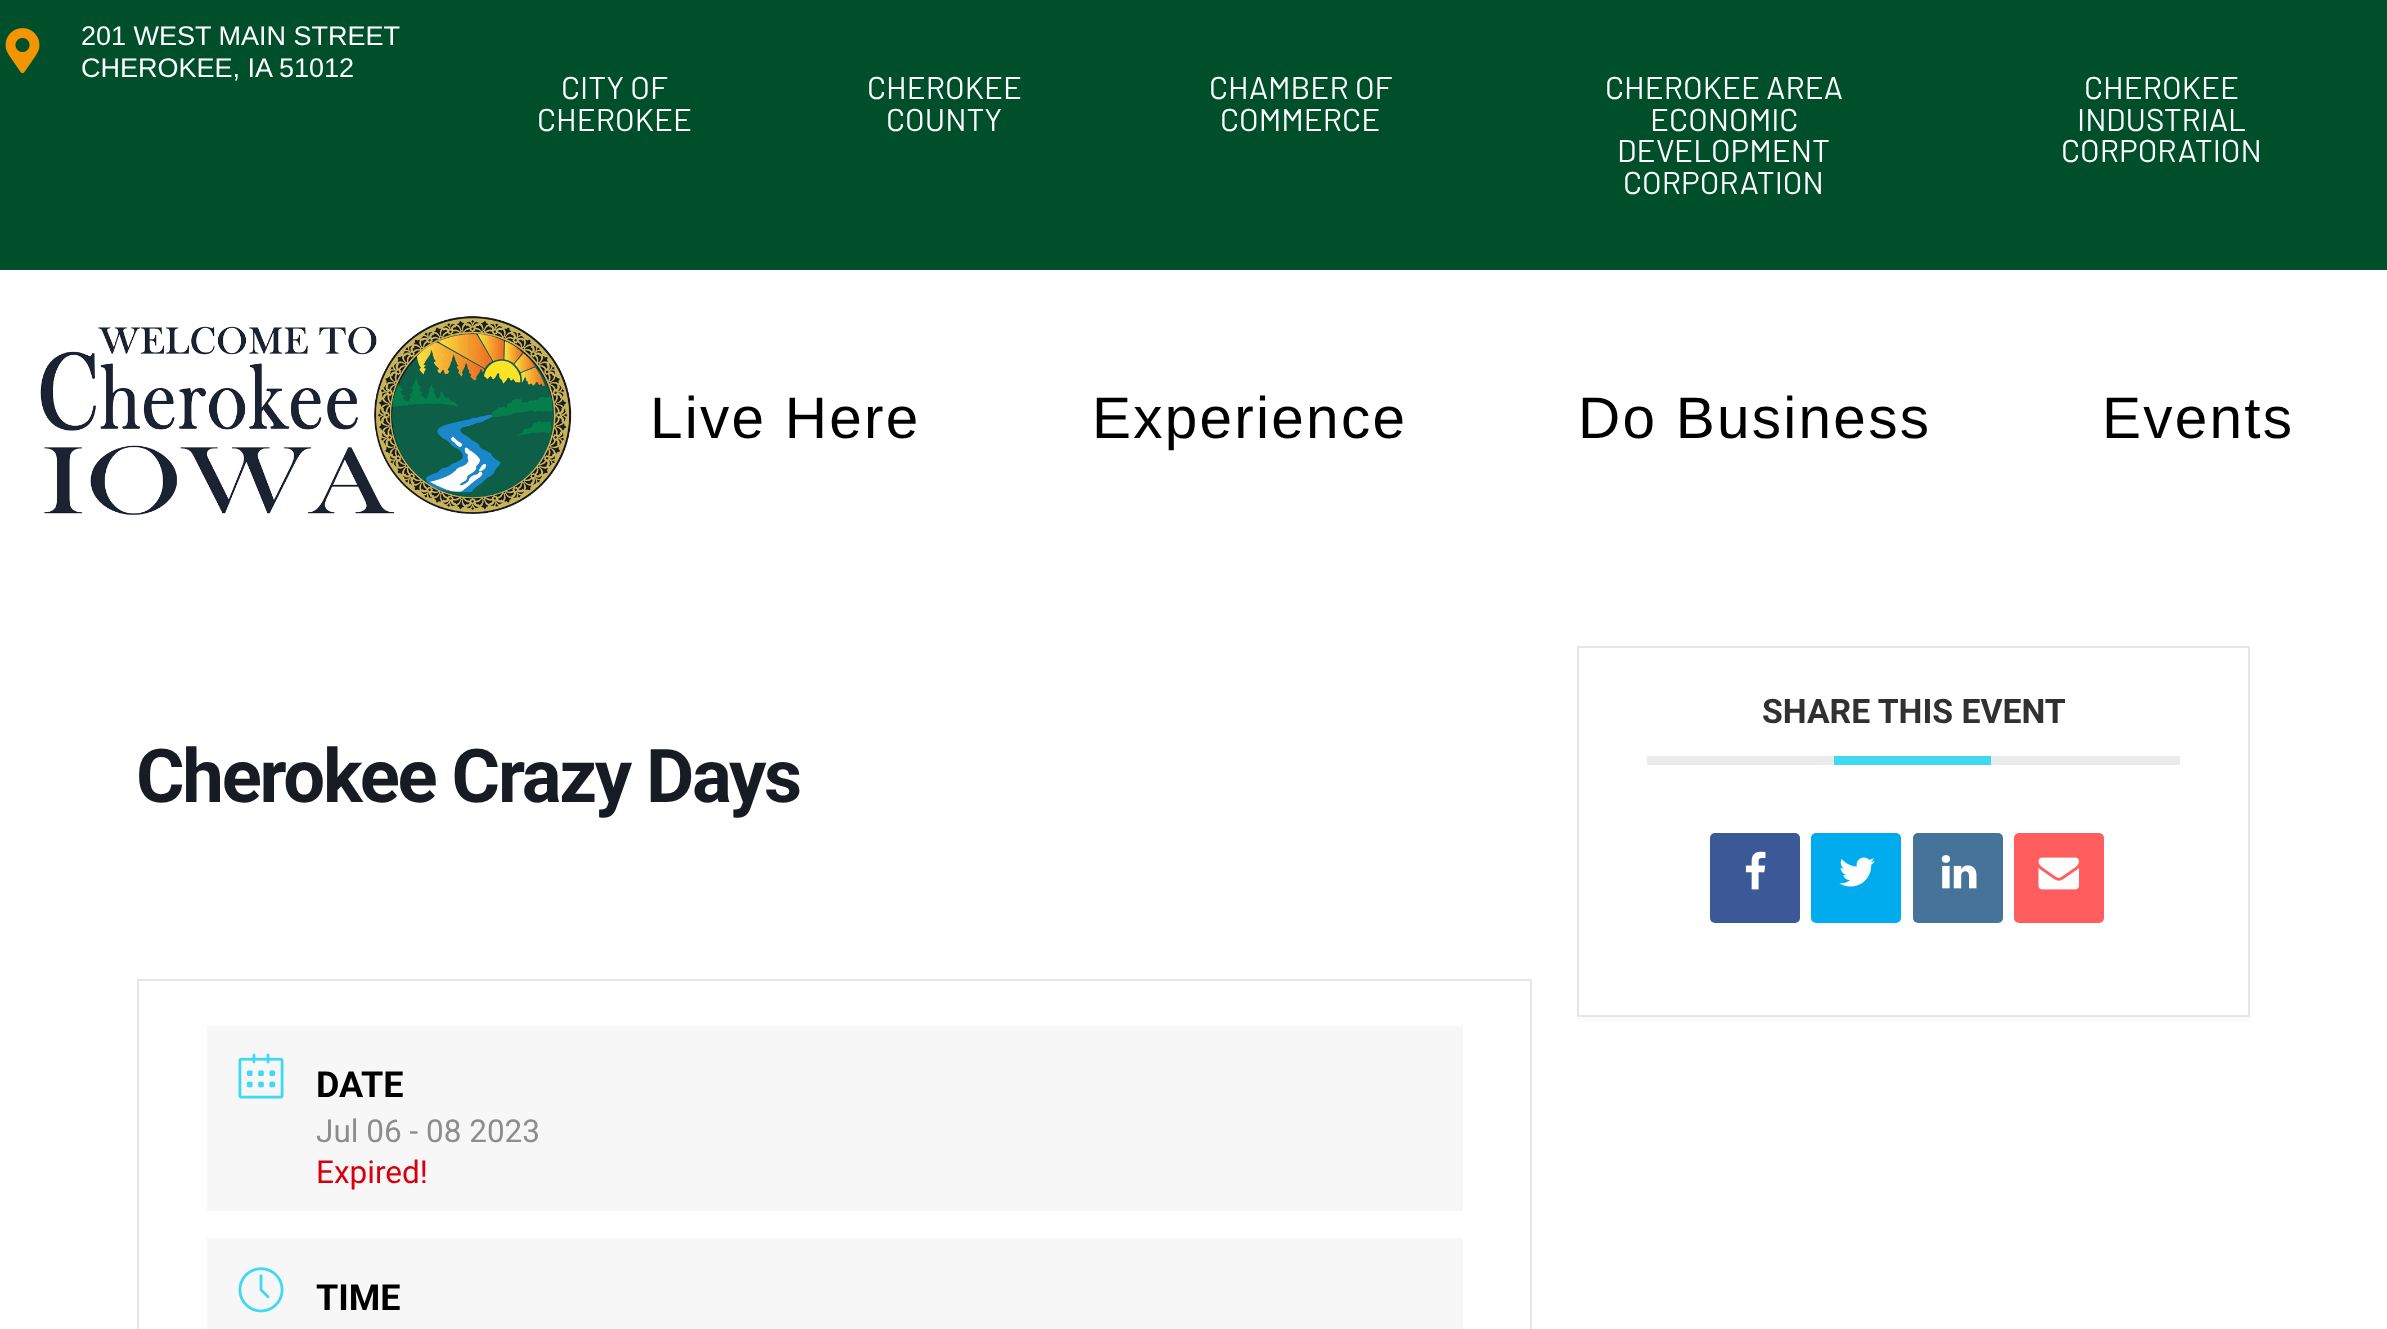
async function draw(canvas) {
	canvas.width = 2387;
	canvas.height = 1329;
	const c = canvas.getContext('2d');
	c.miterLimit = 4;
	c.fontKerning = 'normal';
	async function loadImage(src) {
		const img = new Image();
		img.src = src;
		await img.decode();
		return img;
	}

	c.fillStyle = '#fff';
	c.fillRect(0, 0, 2387, 1329);
	c.fillStyle = '#004f2b';
	c.fillRect(0, 0, 2387, 270);
	c.drawImage(await loadImage('img1.png'), 5, 28, 35, 46);
	c.font = '27px Liberation Sans';
	c.fillStyle = '#fff';
	c.fillText('201 WEST MAIN STREET', 81, 45);
	c.fillText('CHEROKEE, IA 51012', 81, 77);
	c.font = '31.5px Barlow';
	for (const [text, x, y] of [
		['CITY OF', 561, 99],
		['CHEROKEE', 537, 131],
		['CHEROKEE', 867, 99],
		['COUNTY', 886, 131],
		['CHAMBER OF', 1209, 99],
		['COMMERCE', 1220, 131],
		['CHEROKEE AREA', 1605, 99],
		['ECONOMIC', 1650, 131],
		['DEVELOPMENT', 1617, 162],
		['CORPORATION', 1623, 194],
		['CHEROKEE', 2084, 99],
		['INDUSTRIAL', 2077, 131],
		['CORPORATION', 2061, 162],
	]) {
		c.fillText(text, x, y);
	}
	c.drawImage(await loadImage('img2.png'), 40, 315, 532, 200);
	c.letterSpacing = '2.25px';
	c.font = '58.5px Liberation Sans';
	c.fillStyle = '#000';
	for (const [text, x, y] of [
		['Live Here', 650, 438],
		['Experience', 1092, 438],
		['Do Business', 1578, 438],
		['Events', 2102, 438],
	]) {
		c.fillText(text, x, y);
	}
	c.fillStyle = '#fbfbfb';
	c.beginPath();
	c.moveTo(1577, 650);
	c.lineTo(1577, 1022);
	c.lineTo(2250, 1022);
	c.lineTo(2250, 1017);
	c.lineTo(1577, 1017);
	c.closePath();
	c.fill();
	c.strokeStyle = '#e6e6e6';
	c.lineWidth = 2;
	c.strokeRect(1578, 647, 671, 369);
	c.fillStyle = '#ebebeb';
	c.fillRect(1647, 756, 533, 9);
	c.letterSpacing = '0px';
	c.font = 'bold 33.75px Roboto';
	c.fillStyle = '#313131';
	c.fillText('SHARE THIS EVENT', 1762, 723);
	c.fillStyle = '#40d9f1';
	c.fillRect(1834, 756, 157, 9);
	c.fillStyle = '#3b5996';
	c.beginPath();
	c.roundRect(1710, 833, 90, 90, 5);
	c.fill();
	c.drawImage(await loadImage('img3.png'), 1745, 851, 21, 39);
	c.fillStyle = '#00acee';
	c.beginPath();
	c.roundRect(1811, 833, 90, 90, 5);
	c.fill();
	c.drawImage(await loadImage('img4.png'), 1839, 857, 36, 30);
	c.fillStyle = '#457399';
	c.beginPath();
	c.roundRect(1913, 833, 90, 90, 5);
	c.fill();
	c.drawImage(await loadImage('img5.png'), 1941, 855, 36, 34);
	c.fillStyle = '#ff5d5e';
	c.beginPath();
	c.roundRect(2014, 833, 90, 90, 5);
	c.fill();
	c.drawImage(await loadImage('img6.png'), 2038, 857, 41, 33);
	c.letterSpacing = '-2.25px';
	c.font = 'bold 74.25px Roboto';
	c.fillStyle = '#171c24';
	c.fillText('Cherokee Crazy Days', 136, 802);
	c.strokeRect(138, 980, 1393, 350);
	c.fillStyle = '#f7f7f7';
	c.fillRect(207, 1026, 1256, 185);
	c.drawImage(await loadImage('img7.png'), 238, 1053, 46, 46);
	c.letterSpacing = '0px';
	c.font = 'bold 36px Roboto';
	c.fillStyle = '#000';
	c.fillText('DATE', 316, 1097);
	c.font = '31.5px Roboto';
	c.fillStyle = '#8d8d8d';
	c.fillText('Jul 06 - 08 2023', 316, 1142);
	c.fillStyle = '#d8000c';
	c.fillText('Expired!', 316, 1183);
	c.fillStyle = '#f7f7f7';
	c.fillRect(207, 1238, 1256, 91);
	c.drawImage(await loadImage('img8.png'), 238, 1267, 46, 46);
	c.font = 'bold 36px Roboto';
	c.fillStyle = '#000';
	c.fillText('TIME', 316, 1310);
}

draw(document.querySelector('canvas'));
